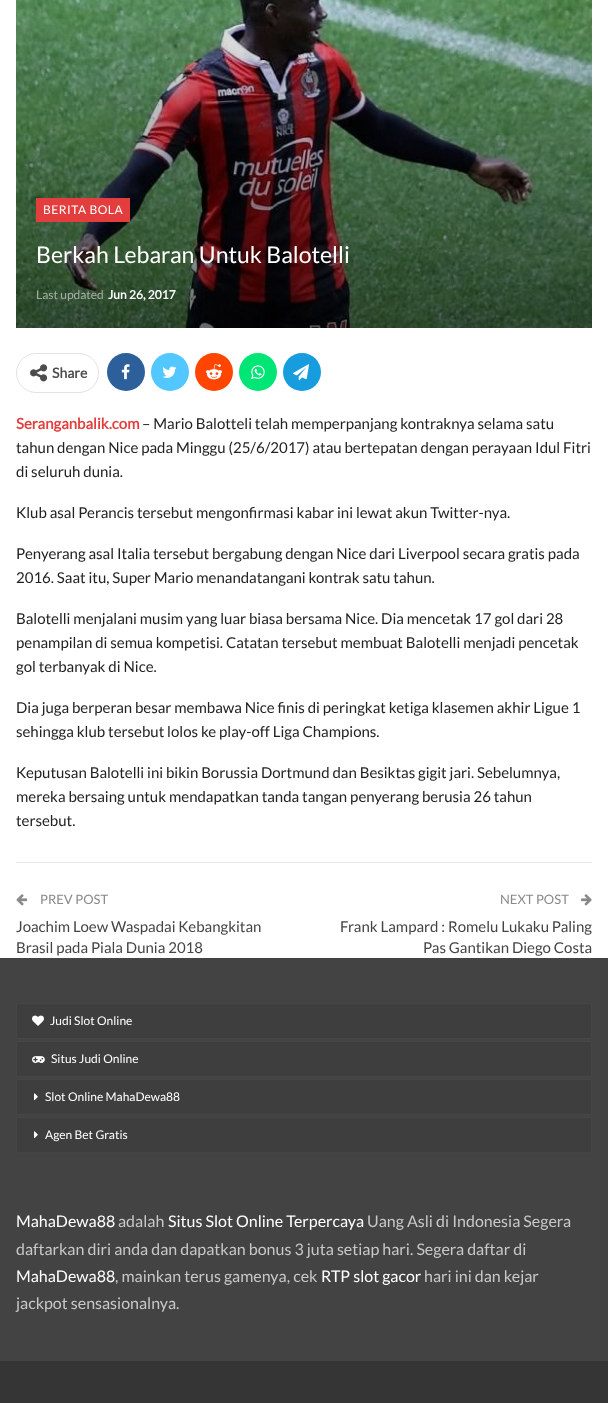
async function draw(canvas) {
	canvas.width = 608;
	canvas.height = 1403;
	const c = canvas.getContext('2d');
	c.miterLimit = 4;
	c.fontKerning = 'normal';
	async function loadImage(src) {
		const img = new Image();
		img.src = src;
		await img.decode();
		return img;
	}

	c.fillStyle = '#fff';
	c.fillRect(0, 0, 608, 1403);
	c.drawImage(await loadImage('img1.png'), 16, 0, 576, 328);
	c.fillStyle = '#e33d3d';
	c.fillRect(36, 198, 94, 24);
	c.letterSpacing = '0.5px';
	c.font = '12px Lato';
	c.fillStyle = '#fff';
	c.fillText('BERITA BOLA', 43, 214);
	c.letterSpacing = '0px';
	c.font = '23px Lato';
	c.fillText('Berkah Lebaran Untuk Balotelli', 36, 263);
	c.font = '12px Lato';
	c.fillStyle = '#a4b0a4';
	c.fillText('Last updated', 36, 299);
	c.font = 'bold 12px Lato';
	c.fillStyle = '#fff';
	c.fillText('Jun 26, 2017', 108, 299);
	c.beginPath();
	c.roundRect(16.5, 353.5, 82, 39, 19.5);
	c.strokeStyle = '#e2e2e2';
	c.stroke();
	c.drawImage(await loadImage('img2.png'), 30, 364, 18, 18);
	c.font = 'bold 14px Lato';
	c.fillStyle = '#4d4d4d';
	c.fillText('Share', 52, 378);
	c.fillStyle = '#2d5f9a';
	c.beginPath();
	c.arc(126, 372, 19, 0, 2 * Math.PI);
	c.fill();
	c.drawImage(await loadImage('img3.png'), 121, 364, 9, 16);
	c.fillStyle = '#53c7ff';
	c.beginPath();
	c.arc(170, 372, 19, 0, 2 * Math.PI);
	c.fill();
	c.drawImage(await loadImage('img4.png'), 162, 366, 15, 12);
	c.fillStyle = '#ff4500';
	c.beginPath();
	c.arc(214, 372, 19, 0, 2 * Math.PI);
	c.fill();
	c.drawImage(await loadImage('img5.png'), 206, 364, 16, 16);
	c.fillStyle = '#00e676';
	c.beginPath();
	c.arc(258, 372, 19, 0, 2 * Math.PI);
	c.fill();
	c.drawImage(await loadImage('img6.png'), 251, 365, 14, 15);
	c.fillStyle = '#179cde';
	c.beginPath();
	c.arc(302, 372, 19, 0, 2 * Math.PI);
	c.fill();
	c.drawImage(await loadImage('img7.png'), 293, 364, 16, 17);
	c.font = 'bold 15px Lato';
	c.fillStyle = '#e33d3d';
	c.fillText('Seranganbalik.com', 16, 429);
	c.font = '15px Lato';
	c.fillStyle = '#222';
	for (const [text, x, y] of [
		['– Mario Balotteli telah memperpanjang kontraknya selama satu', 142, 429],
		['tahun dengan Nice pada Minggu (25/6/2017) atau bertepatan dengan perayaan Idul Fitri', 16, 453],
		['di seluruh dunia.', 16, 477],
		['Klub asal Perancis tersebut mengonfirmasi kabar ini lewat akun Twitter-nya.', 16, 518],
		['Penyerang asal Italia tersebut bergabung dengan Nice dari Liverpool secara gratis pada', 16, 559],
		['2016. Saat itu, Super Mario menandatangani kontrak satu tahun.', 16, 583],
		['Balotelli menjalani musim yang luar biasa bersama Nice. Dia mencetak 17 gol dari 28', 16, 624],
		['penampilan di semua kompetisi. Catatan tersebut membuat Balotelli menjadi pencetak', 16, 648],
		['gol terbanyak di Nice.', 16, 672],
		['Dia juga berperan besar membawa Nice finis di peringkat ketiga klasemen akhir Ligue 1', 16, 713],
		['sehingga klub tersebut lolos ke play-off Liga Champions.', 16, 737],
		['Keputusan Balotelli ini bikin Borussia Dortmund dan Besiktas gigit jari. Sebelumnya,', 16, 778],
		['mereka bersaing untuk mendapatkan tanda tangan penyerang berusia 26 tahun', 16, 802],
		['tersebut.', 16, 826],
	]) {
		c.fillText(text, x, y);
	}
	c.fillStyle = '#e8e8e8';
	c.fillRect(16, 862, 576, 1);
	c.drawImage(await loadImage('img8.png'), 16, 894, 12, 12);
	c.font = '13px Lato';
	c.fillStyle = '#8a8a8a';
	c.fillText('PREV POST', 40, 904);
	c.font = '15px Lato';
	c.fillStyle = '#444';
	c.fillText('Joachim Loew Waspadai Kebangkitan', 16, 932);
	c.fillText('Brasil pada Piala Dunia 2018', 16, 953);
	c.font = '13px Lato';
	c.fillStyle = '#8a8a8a';
	c.fillText('NEXT POST', 500, 904);
	c.drawImage(await loadImage('img9.png'), 581, 894, 11, 12);
	c.font = '15px Lato';
	c.fillStyle = '#444';
	c.fillText('Frank Lampard : Romelu Lukaku Paling', 340, 932);
	c.fillText('Pas Gantikan Diego Costa', 423, 953);
	c.fillStyle = '#434343';
	c.fillRect(0, 958, 608, 403);
	c.fillStyle = '#3e3e3e';
	c.beginPath();
	c.rect(16.5, 1003.5, 575, 35);
	c.fill();
	c.strokeStyle = '#464646';
	c.stroke();
	c.drawImage(await loadImage('img10.png'), 32, 1015, 12, 11);
	c.font = '12px Lato';
	c.fillStyle = '#fff';
	c.fillText('Judi Slot Online', 50, 1025);
	c.fillStyle = '#3e3e3e';
	c.beginPath();
	c.rect(16.5, 1041.5, 575, 35);
	c.fill();
	c.stroke();
	c.drawImage(await loadImage('img11.png'), 32, 1056, 13, 7);
	c.fillStyle = '#fff';
	c.fillText('Situs Judi Online', 51, 1063);
	c.fillStyle = '#3e3e3e';
	c.beginPath();
	c.rect(16.5, 1079.5, 575, 35);
	c.fill();
	c.stroke();
	c.drawImage(await loadImage('img12.png'), 34, 1093, 4, 8);
	c.fillStyle = '#fff';
	c.fillText('Slot Online MahaDewa88', 45, 1101);
	c.fillStyle = '#3e3e3e';
	c.beginPath();
	c.rect(16.5, 1117.5, 575, 35);
	c.fill();
	c.stroke();
	c.drawImage(await loadImage('img12.png'), 34, 1131, 4, 8);
	c.fillStyle = '#fff';
	c.fillText('Agen Bet Gratis', 45, 1139);
	c.font = '16px Lato';
	c.fillText('MahaDewa88', 16, 1227);
	c.fillStyle = '#c8c8c8';
	c.fillText('adalah', 118, 1227);
	c.fillStyle = '#fff';
	c.fillText('Situs Slot Online Terpercaya', 168, 1227);
	c.fillStyle = '#c8c8c8';
	c.fillText('Uang Asli di Indonesia Segera', 367, 1227);
	c.fillText('daftarkan diri anda dan dapatkan bonus 3 juta setiap hari. Segera daftar di', 16, 1255);
	c.fillStyle = '#fff';
	c.fillText('MahaDewa88', 16, 1282);
	c.fillStyle = '#c8c8c8';
	c.fillText(', mainkan terus gamenya, cek', 115, 1282);
	c.fillStyle = '#fff';
	c.fillText('RTP slot gacor', 321, 1282);
	c.fillStyle = '#c8c8c8';
	c.fillText('hari ini dan kejar', 424, 1282);
	c.fillText('jackpot sensasionalnya.', 16, 1309);
	c.fillStyle = '#353535';
	c.fillRect(0, 1361, 608, 42);
}

draw(document.querySelector('canvas'));
